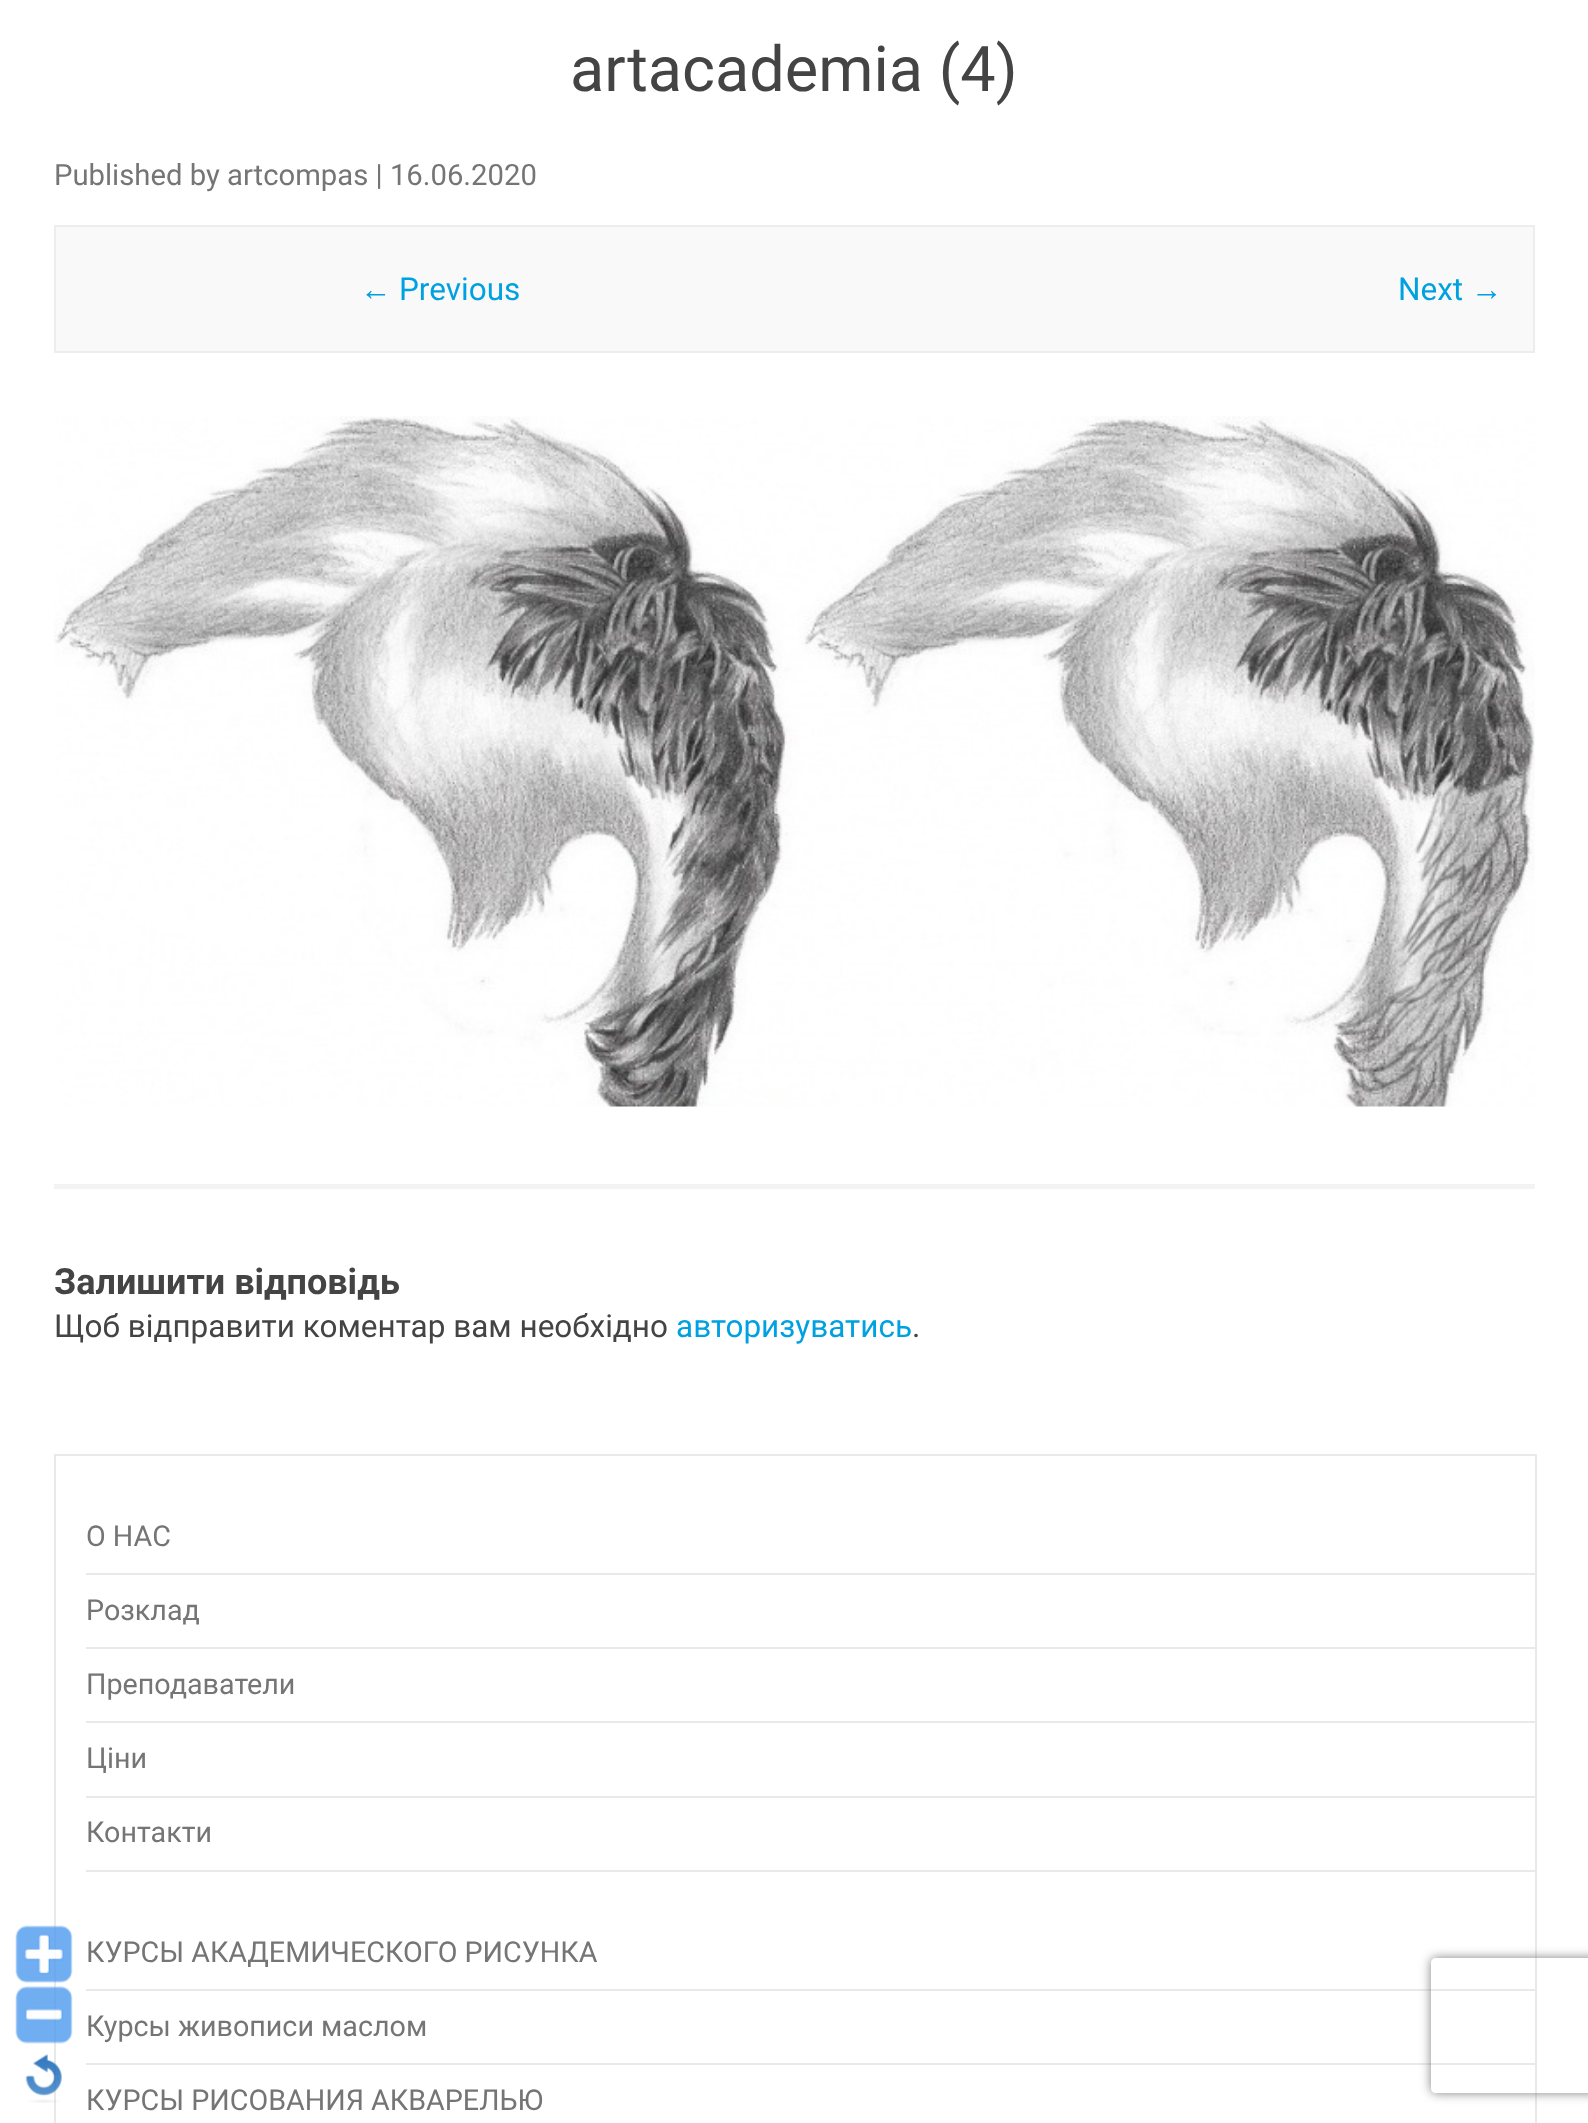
async function draw(canvas) {
	canvas.width = 1588;
	canvas.height = 2123;
	const c = canvas.getContext('2d');
	c.miterLimit = 4;
	c.fontKerning = 'normal';
	async function loadImage(src) {
		const img = new Image();
		img.src = src;
		await img.decode();
		return img;
	}

	c.fillStyle = '#fff';
	c.fillRect(0, 0, 1588, 2123);
	c.strokeStyle = '#e9e9e9';
	c.lineWidth = 2;
	c.strokeRect(55, 1455, 1481, 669);
	c.drawImage(await loadImage('img1.png'), 15, 1925, 58, 58);
	c.drawImage(await loadImage('img2.png'), 15, 1986, 58, 58);
	c.drawImage(await loadImage('img3.png'), 25, 2054, 37, 49);
	c.fillStyle = '#f3f3f3';
	c.fillRect(54, 1184, 1481, 5);
	c.font = '63px Roboto';
	c.fillStyle = '#444';
	c.fillText('artacademia (4)', 570, 91);
	c.font = '29.25px Roboto';
	c.fillStyle = '#757575';
	c.fillText('Published by artcompas | 16.06.2020', 54, 185);
	c.fillStyle = '#f9f9f9';
	c.beginPath();
	c.rect(55, 226, 1479, 126);
	c.fill();
	c.strokeStyle = '#ededed';
	c.stroke();
	c.font = '31.5px Liberation Sans';
	c.fillStyle = '#00a1e0';
	c.fillText('←', 360, 300);
	c.font = '31.5px Roboto';
	c.fillText('Previous', 399, 300);
	c.fillText('Next', 1398, 300);
	c.font = '31.5px Liberation Sans';
	c.fillText('→', 1471, 300);
	c.drawImage(await loadImage('img4.png'), 54, 416, 1481, 691);
	c.font = 'bold 36px Roboto';
	c.fillStyle = '#444';
	c.fillText('Залишити відповідь', 54, 1294);
	c.font = '31.5px Roboto';
	c.fillText('Щоб відправити коментар вам необхідно', 54, 1337);
	c.fillStyle = '#00a1e0';
	c.fillText('авторизуватись', 676, 1337);
	c.fillStyle = '#444';
	c.fillText('.', 912, 1337);
	c.fillStyle = '#e9e9e9';
	c.fillRect(86, 1573, 1449, 2);
	c.font = '28.7px Roboto';
	c.fillStyle = '#757575';
	c.fillText('О НАС', 86, 1546);
	c.fillStyle = '#e9e9e9';
	c.fillRect(86, 1647, 1449, 2);
	c.fillStyle = '#757575';
	c.fillText('Розклад', 86, 1620);
	c.fillStyle = '#e9e9e9';
	c.fillRect(86, 1721, 1449, 2);
	c.fillStyle = '#757575';
	c.fillText('Преподаватели', 86, 1694);
	c.fillStyle = '#e9e9e9';
	c.fillRect(86, 1796, 1449, 2);
	c.fillStyle = '#757575';
	c.fillText('Ціни', 86, 1768);
	c.fillStyle = '#e9e9e9';
	c.fillRect(86, 1870, 1449, 2);
	c.fillStyle = '#757575';
	c.fillText('Контакти', 86, 1842);
	c.fillStyle = '#e9e9e9';
	c.fillRect(86, 1989, 1449, 2);
	c.fillStyle = '#757575';
	c.fillText('КУРСЫ АКАДЕМИЧЕСКОГО РИСУНКА', 86, 1962);
	c.fillStyle = '#e9e9e9';
	c.fillRect(86, 2063, 1449, 2);
	c.fillStyle = '#757575';
	c.fillText('Курсы живописи маслом', 86, 2036);
	c.fillText('КУРСЫ РИСОВАНИЯ АКВАРЕЛЬЮ', 86, 2110);
	c.save();
	c.beginPath();
	c.moveTo(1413, 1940);
	c.lineTo(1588, 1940);
	c.lineTo(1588, 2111);
	c.lineTo(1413, 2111);
	c.closePath();
	c.moveTo(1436, 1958);
	c.lineTo(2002, 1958);
	c.bezierCurveTo(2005, 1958, 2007, 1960, 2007, 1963);
	c.lineTo(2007, 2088);
	c.bezierCurveTo(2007, 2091, 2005, 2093, 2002, 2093);
	c.lineTo(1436, 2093);
	c.bezierCurveTo(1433, 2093, 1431, 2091, 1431, 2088);
	c.lineTo(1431, 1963);
	c.bezierCurveTo(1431, 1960, 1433, 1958, 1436, 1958);
	c.closePath();
	c.clip('evenodd');
	c.fillStyle = '#808080';
	c.filter = 'blur(5.5px)';
	c.beginPath();
	c.roundRect(1431, 1958, 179, 135, 5);
	c.fill();
	c.filter = 'none';
	c.restore();
}

draw(document.querySelector('canvas'));
